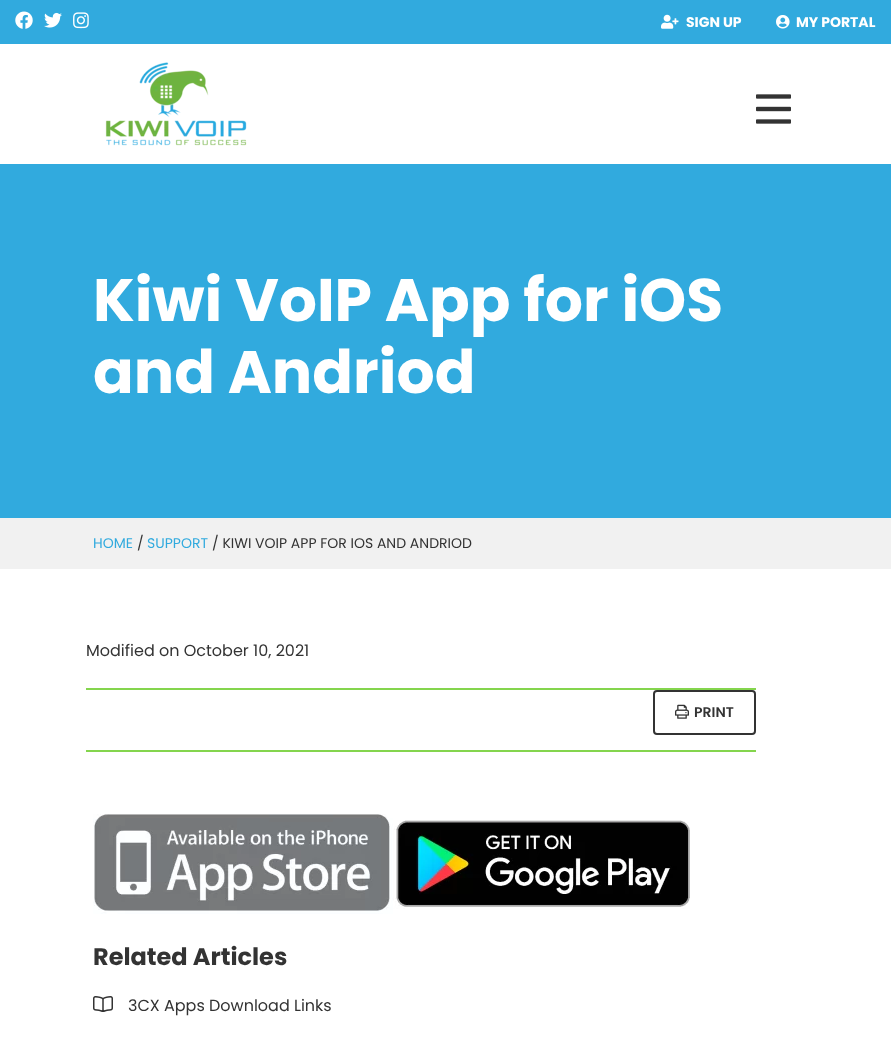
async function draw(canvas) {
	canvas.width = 891;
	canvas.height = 1041;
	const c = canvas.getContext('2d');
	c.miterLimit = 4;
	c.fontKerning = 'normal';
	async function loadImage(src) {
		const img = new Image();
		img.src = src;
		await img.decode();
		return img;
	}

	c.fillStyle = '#fff';
	c.fillRect(0, 0, 891, 1041);
	c.fillStyle = '#31aade';
	c.fillRect(0, 0, 891, 44);
	c.drawImage(await loadImage('img1.png'), 15, 11, 18, 18);
	c.drawImage(await loadImage('img2.png'), 44, 12, 18, 16);
	c.drawImage(await loadImage('img3.png'), 73, 12, 16, 17);
	c.drawImage(await loadImage('img4.png'), 661, 14, 18, 15);
	c.font = 'bold 14px Poppins';
	c.fillStyle = '#fff';
	c.fillText('SIGN UP', 686, 27);
	c.drawImage(await loadImage('img5.png'), 776, 15, 14, 14);
	c.fillText('MY PORTAL', 796, 27);
	c.drawImage(await loadImage('img6.png'), 105, 62, 142, 84);
	c.drawImage(await loadImage('img7.png'), 756, 94, 35, 30);
	c.fillStyle = '#31aade';
	c.fillRect(0, 164, 891, 354);
	c.font = 'bold 60px Poppins';
	c.fillStyle = '#fff';
	c.fillText('Kiwi VoIP App for iOS', 93, 321);
	c.fillText('and Andriod', 93, 393);
	c.fillStyle = '#f1f1f1';
	c.fillRect(0, 518, 891, 51);
	c.font = '14px Poppins';
	c.fillStyle = '#31aade';
	c.fillText('HOME', 93, 548);
	c.fillStyle = '#333';
	c.fillText('/', 137, 548);
	c.fillStyle = '#31aade';
	c.fillText('SUPPORT', 147, 548);
	c.fillStyle = '#333';
	c.fillText('/ KIWI VOIP APP FOR IOS AND ANDRIOD', 212, 548);
	c.fillStyle = '#84d54d';
	c.fillRect(86, 688, 670, 2);
	c.font = '16px Poppins';
	c.fillStyle = '#333';
	c.fillText('Modified on October 10, 2021', 86, 656);
	c.fillStyle = '#84d54d';
	c.fillRect(86, 750, 670, 2);
	c.beginPath();
	c.roundRect(654, 691, 101, 43, 3);
	c.strokeStyle = '#333';
	c.lineWidth = 2;
	c.stroke();
	c.drawImage(await loadImage('img8.png'), 675, 704, 14, 15);
	c.font = '600 14px Poppins';
	c.fillStyle = '#333';
	c.fillText('PRINT', 694, 717);
	c.drawImage(await loadImage('img9.png'), 93, 814, 300, 100);
	c.drawImage(await loadImage('img10.png'), 393, 820, 297, 89);
	c.font = 'bold 24px Poppins';
	c.fillText('Related Articles', 93, 965);
	c.drawImage(await loadImage('img11.png'), 93, 996, 20, 16);
	c.font = '16px Poppins';
	c.fillText('3CX Apps Download Links', 128, 1011);
}

draw(document.querySelector('canvas'));
